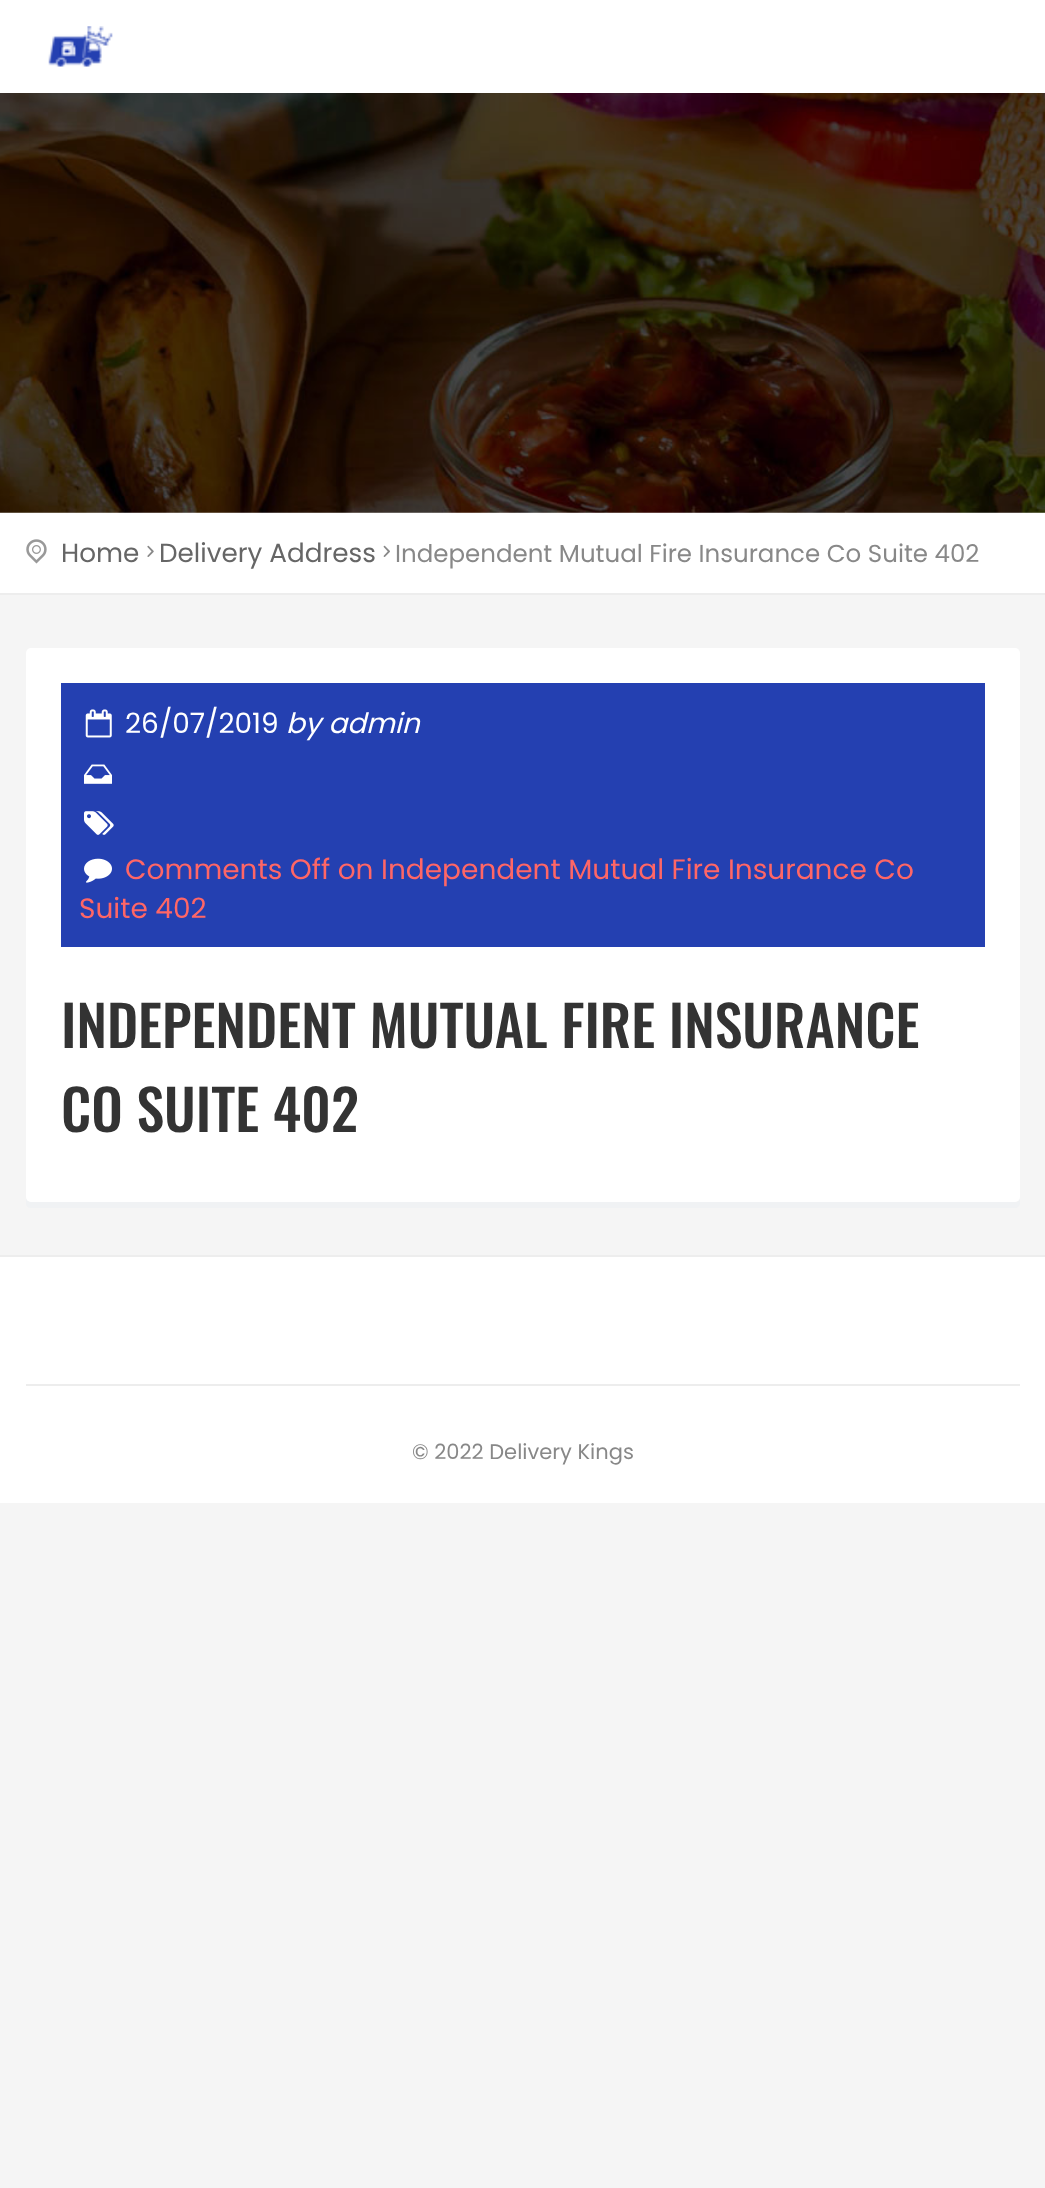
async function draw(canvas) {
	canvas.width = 1045;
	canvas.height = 2188;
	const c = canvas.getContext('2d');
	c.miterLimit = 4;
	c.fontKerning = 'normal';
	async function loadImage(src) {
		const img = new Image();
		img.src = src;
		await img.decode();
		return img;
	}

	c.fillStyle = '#f5f5f5';
	c.fillRect(0, 0, 1045, 2188);
	c.fillStyle = '#fff';
	c.fillRect(0, 0, 1045, 93);
	c.drawImage(await loadImage('img1.png'), 48, 26, 65, 41);
	c.drawImage(await loadImage('img2.png'), 0, 93, 1045, 420);
	c.fillRect(0, 513, 1045, 80);
	c.fillStyle = '#ededed';
	c.fillRect(0, 593, 1045, 2);
	c.drawImage(await loadImage('img3.png'), 26, 539, 21, 25);
	c.font = '26.25px Poppins';
	c.fillStyle = '#666';
	c.fillText('Home', 61, 562);
	c.drawImage(await loadImage('img4.png'), 147, 545, 7, 12);
	c.fillText('Delivery Address', 159, 562);
	c.drawImage(await loadImage('img5.png'), 383, 545, 7, 12);
	c.font = '24.5px Poppins';
	c.fillStyle = '#888';
	c.fillText('Independent Mutual Fire Insurance Co Suite 402', 395, 562);
	c.fillStyle = '#f0f2f4';
	c.beginPath();
	c.moveTo(26, 656);
	c.lineTo(26, 1203);
	c.bezierCurveTo(26, 1206, 28, 1208, 31, 1208);
	c.lineTo(1015, 1208);
	c.bezierCurveTo(1018, 1208, 1020, 1206, 1020, 1203);
	c.lineTo(1020, 1199);
	c.bezierCurveTo(1019, 1201, 1017, 1202, 1015, 1202);
	c.lineTo(32, 1202);
	c.bezierCurveTo(29, 1202, 26, 1200, 26, 1197);
	c.closePath();
	c.fill();
	c.fillStyle = '#fff';
	c.beginPath();
	c.roundRect(26, 648, 994, 554, 5);
	c.fill();
	c.fillStyle = '#2440b1';
	c.fillRect(61, 683, 924, 264);
	c.drawImage(await loadImage('img6.png'), 85, 709, 27, 29);
	c.font = '28px Poppins';
	c.fillStyle = '#fff';
	c.fillText('26/07/2019', 125, 733);
	c.font = 'italic 28px Poppins';
	c.fillText('by admin', 286, 733);
	c.drawImage(await loadImage('img7.png'), 84, 764, 28, 20);
	c.drawImage(await loadImage('img8.png'), 84, 811, 30, 24);
	c.drawImage(await loadImage('img9.png'), 84, 858, 28, 25);
	c.font = '28px Poppins';
	c.fillStyle = '#f66';
	c.fillText('Comments Off on Independent Mutual Fire Insurance Co', 125, 879);
	c.fillText('Suite 402', 79, 918);
	c.font = '500 56px Oswald';
	c.fillStyle = '#333';
	c.fillText('INDEPENDENT MUTUAL FIRE INSURANCE', 61, 1048);
	c.fillText('CO SUITE 402', 61, 1132);
	for (const [x, y, w, h, color] of [
		[0, 1257, 1045, 246, '#fff'],
		[0, 1255, 1045, 2, '#ededed'],
		[26, 1384, 994, 2, '#ededed'],
	]) {
		c.fillStyle = color;
		c.fillRect(x, y, w, h);
	}
	c.font = '21px Poppins';
	c.fillStyle = '#888';
	c.fillText('© 2022 Delivery Kings', 412, 1459);
}

draw(document.querySelector('canvas'));
